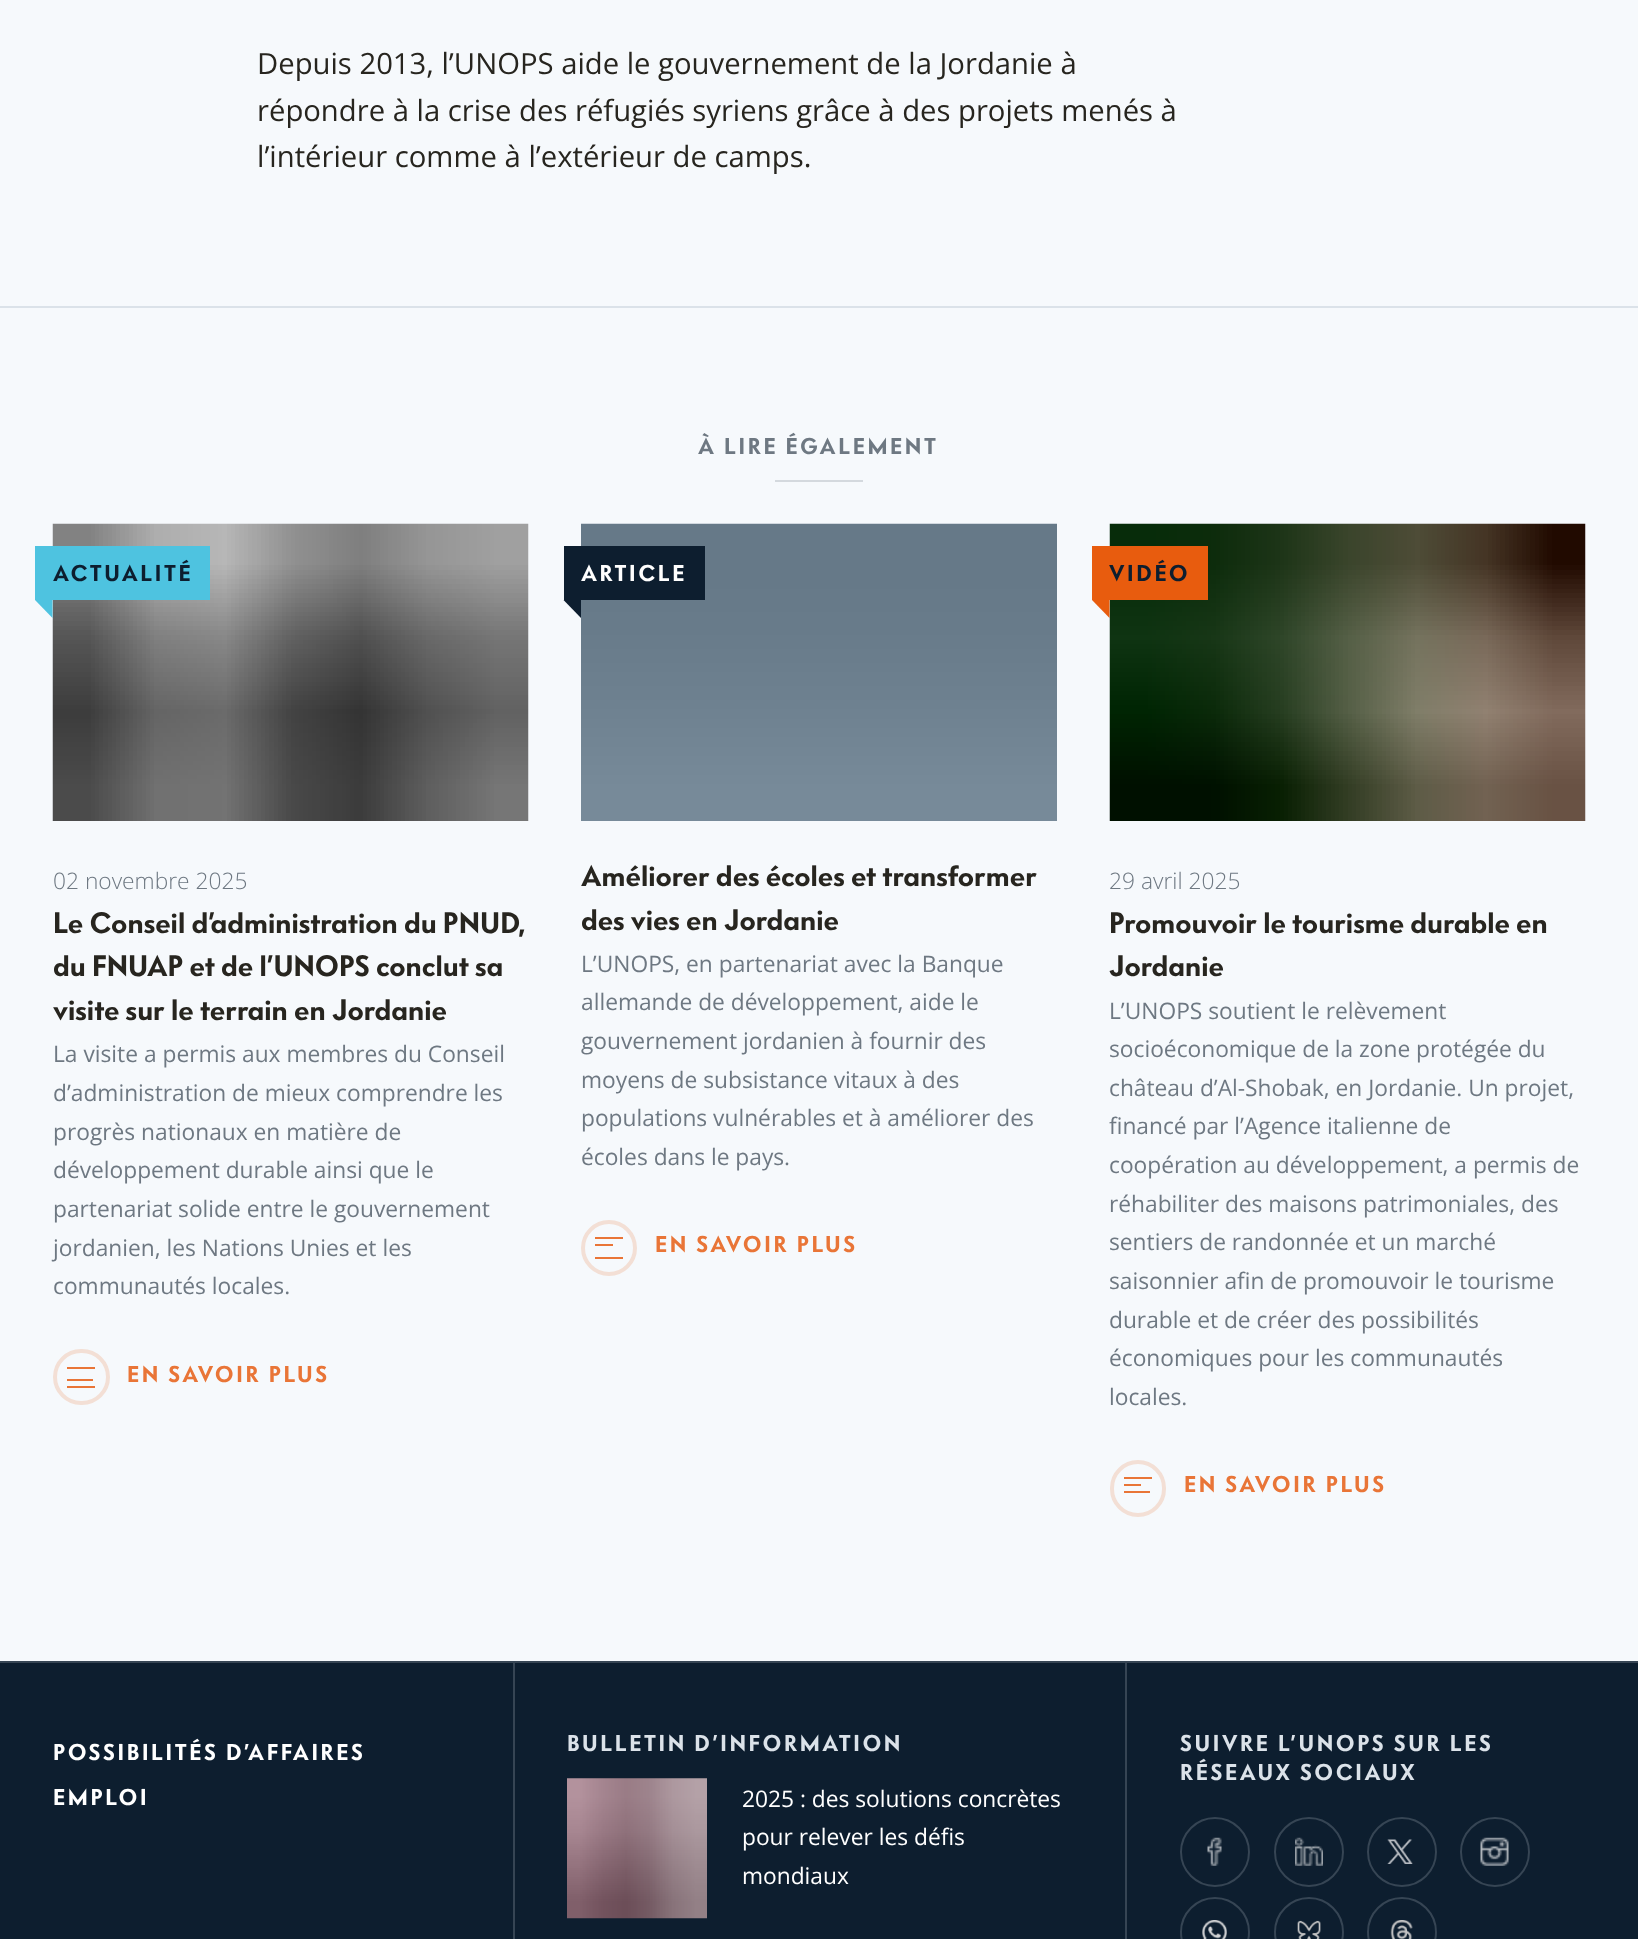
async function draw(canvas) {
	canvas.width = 1638;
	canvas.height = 1939;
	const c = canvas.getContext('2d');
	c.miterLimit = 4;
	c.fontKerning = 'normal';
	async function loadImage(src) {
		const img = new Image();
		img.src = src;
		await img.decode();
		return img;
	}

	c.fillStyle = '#f6f9fc';
	c.fillRect(0, 0, 1638, 1939);
	c.font = '29.25px Open Sans';
	c.fillStyle = '#27251f';
	for (const [text, x, y] of [
		['Depuis 2013, l’UNOPS aide le gouvernement de la Jordanie à', 257, 74],
		['répondre à la crise des réfugiés syriens grâce à des projets menés à', 257, 121],
		['l’intérieur comme à l’extérieur de camps.', 257, 167],
	]) {
		c.fillText(text, x, y);
	}
	c.fillStyle = '#dbe2e9';
	c.fillRect(0, 306, 1638, 2);
	c.letterSpacing = '2.6px';
	c.font = 'bold 22.75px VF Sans';
	c.fillStyle = '#6e7882';
	c.fillText('À LIRE ÉGALEMENT', 698, 454);
	c.fillStyle = '#d4d9de';
	c.fillRect(775, 480, 88, 2);
	c.drawImage(await loadImage('img1.png'), 52, 523, 477, 298);
	c.fillStyle = '#4ec3e0';
	c.fillRect(35, 546, 175, 54);
	c.fillStyle = '#0d1e2f';
	c.fillText('ACTUALITÉ', 53, 581);
	c.fillStyle = '#4ec3e0';
	c.beginPath();
	c.moveTo(35, 600);
	c.lineTo(52.5, 600);
	c.lineTo(52.5, 618);
	c.closePath();
	c.fill();
	c.letterSpacing = '0px';
	c.font = '300 22.75px Open Sans';
	c.fillStyle = '#6e7882';
	c.fillText('02 novembre 2025', 53, 889);
	c.font = 'bold 29.25px VF Sans';
	c.fillStyle = '#27251f';
	for (const [text, x, y] of [
		['Le Conseil d’administration du PNUD,', 53, 933],
		['du FNUAP et de l’UNOPS conclut sa', 53, 976],
		['visite sur le terrain en Jordanie', 53, 1020],
	]) {
		c.fillText(text, x, y);
	}
	c.font = '22.75px Open Sans';
	c.fillStyle = '#6e7882';
	for (const [text, x, y] of [
		['La visite a permis aux membres du Conseil', 53, 1062],
		['d’administration de mieux comprendre les', 53, 1101],
		['progrès nationaux en matière de', 53, 1140],
		['développement durable ainsi que le', 53, 1178],
		['partenariat solide entre le gouvernement', 53, 1217],
		['jordanien, les Nations Unies et les', 53, 1256],
		['communautés locales.', 53, 1294],
	]) {
		c.fillText(text, x, y);
	}
	c.beginPath();
	c.roundRect(55, 1351, 53, 52, 26);
	c.strokeStyle = '#f3dfd5';
	c.lineWidth = 4;
	c.stroke();
	for (const [x, y, w, h, color] of [
		[67, 1367, 28, 2, '#e97537'],
		[67, 1379, 26, 2, '#e97537'],
		[67, 1386, 28, 2, '#e97537'],
	]) {
		c.fillStyle = color;
		c.fillRect(x, y, w, h);
	}
	c.letterSpacing = '2.6px';
	c.font = 'bold 22.75px VF Sans';
	c.fillText('EN SAVOIR PLUS', 127, 1382);
	c.drawImage(await loadImage('img2.png'), 581, 523, 476, 298);
	c.fillStyle = '#0d1e2f';
	c.fillRect(564, 546, 141, 54);
	c.fillStyle = '#fff';
	c.fillText('ARTICLE', 581, 581);
	c.fillStyle = '#0d1e2f';
	c.beginPath();
	c.moveTo(563.5, 600);
	c.lineTo(581, 600);
	c.lineTo(581, 618);
	c.closePath();
	c.fill();
	c.letterSpacing = '0px';
	c.font = 'bold 29.25px VF Sans';
	c.fillStyle = '#27251f';
	c.fillText('Améliorer des écoles et transformer', 581, 886);
	c.fillText('des vies en Jordanie', 581, 930);
	c.font = '22.75px Open Sans';
	c.fillStyle = '#6e7882';
	for (const [text, x, y] of [
		['L’UNOPS, en partenariat avec la Banque', 581, 972],
		['allemande de développement, aide le', 581, 1010],
		['gouvernement jordanien à fournir des', 581, 1049],
		['moyens de subsistance vitaux à des', 581, 1088],
		['populations vulnérables et à améliorer des', 581, 1126],
		['écoles dans le pays.', 581, 1165],
	]) {
		c.fillText(text, x, y);
	}
	c.beginPath();
	c.arc(609, 1248, 26, 0, 2 * Math.PI);
	c.stroke();
	for (const [x, y, w, h, color] of [
		[595, 1237, 28, 2, '#e97537'],
		[595, 1244, 18, 2, '#e97537'],
		[595, 1257, 28, 2, '#e97537'],
	]) {
		c.fillStyle = color;
		c.fillRect(x, y, w, h);
	}
	c.letterSpacing = '2.6px';
	c.font = 'bold 22.75px VF Sans';
	c.fillText('EN SAVOIR PLUS', 655, 1252);
	c.drawImage(await loadImage('img3.png'), 1109, 523, 477, 298);
	c.fillStyle = '#e85c0e';
	c.fillRect(1092, 546, 116, 54);
	c.fillStyle = '#0d1e2f';
	c.fillText('VIDÉO', 1109, 581);
	c.fillStyle = '#e85c0e';
	c.beginPath();
	c.moveTo(1092, 600);
	c.lineTo(1109.5, 600);
	c.lineTo(1109.5, 618);
	c.closePath();
	c.fill();
	c.letterSpacing = '0px';
	c.font = '300 22.75px Open Sans';
	c.fillStyle = '#6e7882';
	c.fillText('29 avril 2025', 1109, 889);
	c.font = 'bold 29.25px VF Sans';
	c.fillStyle = '#27251f';
	c.fillText('Promouvoir le tourisme durable en', 1109, 933);
	c.fillText('Jordanie', 1109, 976);
	c.font = '22.75px Open Sans';
	c.fillStyle = '#6e7882';
	for (const [text, x, y] of [
		['L’UNOPS soutient le relèvement', 1109, 1019],
		['socioéconomique de la zone protégée du', 1109, 1057],
		['château d’Al-Shobak, en Jordanie. Un projet,', 1109, 1096],
		['financé par l’Agence italienne de', 1109, 1134],
		['coopération au développement, a permis de', 1109, 1173],
		['réhabiliter des maisons patrimoniales, des', 1109, 1212],
		['sentiers de randonnée et un marché', 1109, 1250],
		['saisonnier afin de promouvoir le tourisme', 1109, 1289],
		['durable et de créer des possibilités', 1109, 1328],
		['économiques pour les communautés', 1109, 1366],
		['locales.', 1109, 1405],
	]) {
		c.fillText(text, x, y);
	}
	c.beginPath();
	c.roundRect(1112, 1462, 52, 53, 26);
	c.stroke();
	for (const [x, y, w, h, color] of [
		[1124, 1477, 28, 2, '#e97537'],
		[1124, 1484, 17, 2, '#e97537'],
		[1124, 1491, 26, 2, '#e97537'],
	]) {
		c.fillStyle = color;
		c.fillRect(x, y, w, h);
	}
	c.letterSpacing = '2.6px';
	c.font = 'bold 22.75px VF Sans';
	c.fillText('EN SAVOIR PLUS', 1184, 1492);
	c.fillStyle = '#0d1e2f';
	c.fillRect(0, 1663, 1638, 276);
	c.fillStyle = '#364554';
	c.fillRect(0, 1661, 1638, 2);
	c.fillStyle = '#fff';
	c.fillText('POSSIBILITÉS D’AFFAIRES', 53, 1760);
	c.fillText('EMPLOI', 53, 1805);
	c.fillStyle = '#364554';
	c.fillRect(513, 1663, 2, 276);
	c.fillStyle = '#dbe2e9';
	c.fillText('BULLETIN D’INFORMATION', 567, 1751);
	c.drawImage(await loadImage('img4.png'), 567, 1778, 140, 141);
	c.letterSpacing = '0px';
	c.font = '22.75px Open Sans';
	c.fillStyle = '#fff';
	for (const [text, x, y] of [
		['2025 : des solutions concrètes', 742, 1807],
		['pour relever les défis', 742, 1845],
		['mondiaux', 742, 1884],
	]) {
		c.fillText(text, x, y);
	}
	c.fillStyle = '#364554';
	c.fillRect(1125, 1663, 2, 276);
	c.letterSpacing = '2.6px';
	c.font = 'bold 22.75px VF Sans';
	c.fillStyle = '#dbe2e9';
	c.fillText('SUIVRE L’UNOPS SUR LES', 1180, 1751);
	c.fillText('RÉSEAUX SOCIAUX', 1180, 1780);
	c.beginPath();
	c.arc(1215, 1852, 34, 0, 2 * Math.PI);
	c.strokeStyle = '#364554';
	c.lineWidth = 2;
	c.stroke();
	c.drawImage(await loadImage('img5.png'), 1207, 1837, 15, 29);
	c.beginPath();
	c.arc(1309, 1852, 34, 0, 2 * Math.PI);
	c.stroke();
	c.drawImage(await loadImage('img6.png'), 1295, 1837, 28, 29);
	c.beginPath();
	c.arc(1402, 1852, 34, 0, 2 * Math.PI);
	c.stroke();
	c.drawImage(await loadImage('img7.png'), 1387, 1839, 26, 25);
	c.beginPath();
	c.arc(1495, 1852, 34, 0, 2 * Math.PI);
	c.stroke();
	c.drawImage(await loadImage('img8.png'), 1480, 1837, 29, 29);
	c.beginPath();
	c.arc(1215, 1932, 34, 0, 2 * Math.PI);
	c.stroke();
	c.drawImage(await loadImage('img9.png'), 1202, 1920, 25, 19);
	c.beginPath();
	c.arc(1309, 1932, 34, 0, 2 * Math.PI);
	c.stroke();
	c.drawImage(await loadImage('img10.png'), 1297, 1920, 24, 19);
	c.beginPath();
	c.arc(1402, 1932, 34, 0, 2 * Math.PI);
	c.stroke();
	c.drawImage(await loadImage('img11.png'), 1390, 1920, 23, 19);
}

draw(document.querySelector('canvas'));
